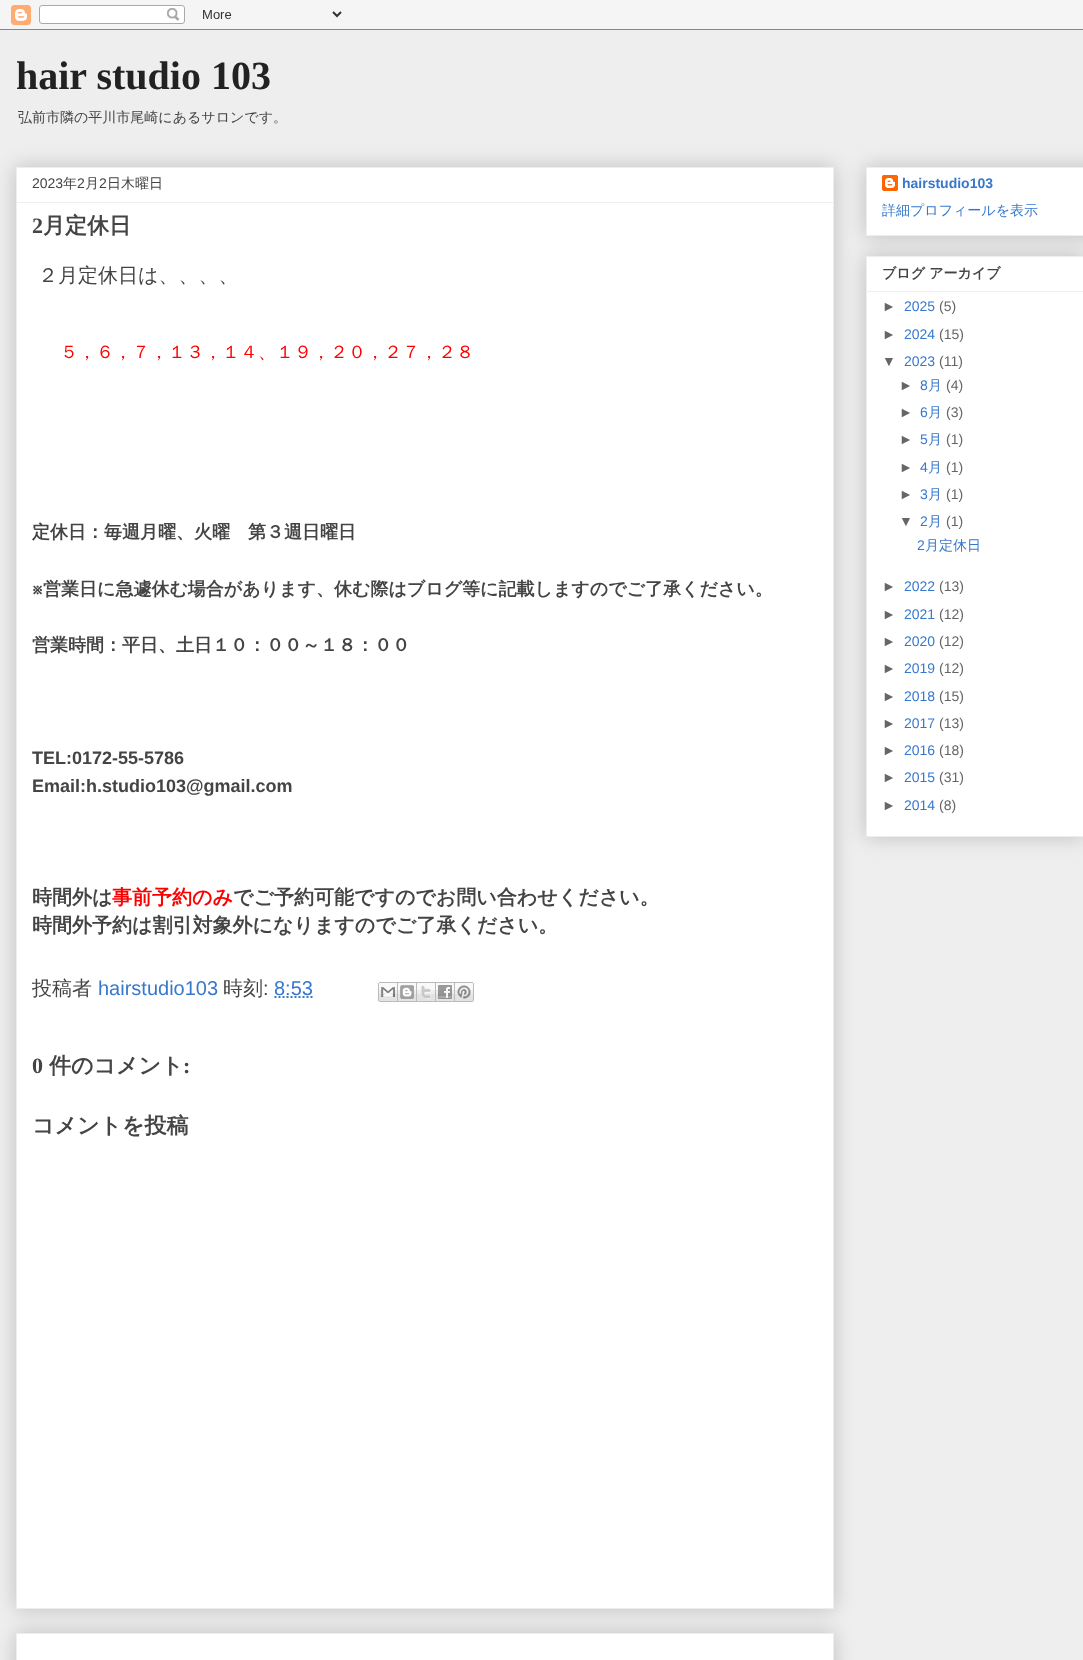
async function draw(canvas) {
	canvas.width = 1083;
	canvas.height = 1660;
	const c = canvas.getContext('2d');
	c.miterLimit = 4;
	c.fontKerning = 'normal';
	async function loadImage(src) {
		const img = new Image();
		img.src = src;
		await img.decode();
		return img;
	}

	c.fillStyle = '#eee';
	c.fillRect(0, 0, 1083, 1660);
	c.drawImage(await loadImage('img1.png'), 0, 0, 1083, 30);
	c.font = 'bold 40px Liberation Serif';
	c.fillStyle = '#222';
	c.fillText('hair studio 103', 16, 89);
	c.font = '500 14px WenQuanYi Zen Hei';
	c.fillStyle = '#444';
	c.fillText('弘前市隣の平川市尾崎にあるサロンです。', 18, 122);
	c.fillStyle = '#00000033';
	c.filter = 'blur(10px)';
	c.beginPath();
	c.rect(16, 1633, 818, 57);
	c.fill();
	c.filter = 'none';
	c.fillStyle = '#fff';
	c.beginPath();
	c.rect(16.5, 1633.5, 817, 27);
	c.fill();
	c.strokeStyle = '#eee';
	c.stroke();
	c.fillStyle = '#00000033';
	c.filter = 'blur(10px)';
	c.beginPath();
	c.rect(16, 167, 818, 1442);
	c.fill();
	c.filter = 'none';
	c.fillStyle = '#fff';
	c.beginPath();
	c.rect(16.5, 167.5, 817, 1441);
	c.fill();
	c.stroke();
	c.font = '14px Liberation Sans';
	c.fillStyle = '#444';
	c.fillText('2023', 32, 188);
	c.font = '500 14px WenQuanYi Zen Hei';
	c.fillText('年', 63, 188);
	c.font = '14px Liberation Sans';
	c.fillText('2', 77, 188);
	c.font = '500 14px WenQuanYi Zen Hei';
	c.fillText('月', 85, 188);
	c.font = '14px Liberation Sans';
	c.fillText('2', 99, 188);
	c.font = '500 14px WenQuanYi Zen Hei';
	c.fillText('日木曜日', 107, 188);
	c.fillStyle = '#eee';
	c.fillRect(17, 202, 816, 1);
	c.font = 'bold 22px Liberation Serif';
	c.fillStyle = '#444';
	c.fillText('2', 32, 233);
	c.font = 'bold 22px WenQuanYi Zen Hei';
	c.fillText('月定休日', 43, 233);
	c.font = '500 20px WenQuanYi Zen Hei';
	c.fillText('２月定休日は、、、、', 38, 282);
	c.font = '500 18px WenQuanYi Zen Hei';
	c.fillStyle = '#f00';
	c.fillText('５，６，７，１３，１４、１９，２０，２７，２８', 60, 358);
	c.font = 'bold 18px WenQuanYi Zen Hei';
	c.fillStyle = '#444';
	c.fillText('定休日：毎週月曜、火曜　第３週日曜日', 32, 538);
	c.font = '600 18px FreeSans';
	c.fillText('※', 32, 595);
	c.font = 'bold 18px WenQuanYi Zen Hei';
	c.fillText('営業日に急遽休む場合があります、休む際はブログ等に記載しますのでご了承ください。', 43, 595);
	c.fillText('営業時間：平日、土日１０：００～１８：００', 32, 651);
	c.font = 'bold 18px Liberation Sans';
	c.fillText('TEL:0172-55-5786', 32, 764);
	c.fillText('Email:h.studio103@gmail.com', 32, 792);
	c.font = 'bold 20px WenQuanYi Zen Hei';
	c.fillText('時間外は', 32, 904);
	c.fillStyle = '#f00';
	c.fillText('事前予約のみ', 112, 904);
	c.fillStyle = '#444';
	c.fillText('でご予約可能ですのでお問い合わせください。', 233, 904);
	c.fillText('時間外予約は割引対象外になりますのでご了承ください。', 32, 932);
	c.font = '500 20px WenQuanYi Zen Hei';
	c.fillText('投稿者', 32, 995);
	c.font = '20px Liberation Sans';
	c.fillStyle = '#3778cd';
	c.fillText('hairstudio103', 98, 995);
	c.font = '500 20px WenQuanYi Zen Hei';
	c.fillStyle = '#444';
	c.fillText('時刻', 223, 995);
	c.font = '20px Liberation Sans';
	c.fillText(':', 263, 995);
	c.fillStyle = '#3778cd';
	c.fillText('8:53', 274, 995);
	c.beginPath();
	c.moveTo(274.5, 997);
	c.lineTo(313.5, 997);
	c.strokeStyle = '#3778cd';
	c.lineWidth = 2;
	c.setLineDash([2, 2]);
	c.stroke();
	c.drawImage(await loadImage('img2.png'), 378, 982, 20, 20);
	c.drawImage(await loadImage('img3.png'), 398, 982, 19, 20);
	c.drawImage(await loadImage('img4.png'), 417, 982, 19, 20);
	c.drawImage(await loadImage('img5.png'), 436, 982, 19, 20);
	c.drawImage(await loadImage('img6.png'), 455, 982, 19, 20);
	c.font = 'bold 22px Liberation Serif';
	c.fillStyle = '#444';
	c.fillText('0', 32, 1073);
	c.font = 'bold 22px WenQuanYi Zen Hei';
	c.fillText('件のコメント', 49, 1073);
	c.font = 'bold 22px Liberation Serif';
	c.fillText(':', 183, 1073);
	c.font = 'bold 22px WenQuanYi Zen Hei';
	c.fillText('コメントを投稿', 32, 1133);
	c.fillStyle = '#00000033';
	c.filter = 'blur(10px)';
	c.beginPath();
	c.rect(866, 167, 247, 69);
	c.fill();
	c.filter = 'none';
	c.fillStyle = '#fff';
	c.beginPath();
	c.rect(866.5, 167.5, 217, 68);
	c.fill();
	c.strokeStyle = '#eee';
	c.lineWidth = 1;
	c.setLineDash([]);
	c.stroke();
	c.drawImage(await loadImage('img7.png'), 882, 175, 16, 16);
	c.font = 'bold 14px Liberation Sans';
	c.fillStyle = '#3778cd';
	c.fillText('hairstudio103', 902, 188);
	c.font = '500 14px WenQuanYi Zen Hei';
	c.fillText('詳細プロフィールを表示', 882, 215);
	c.fillStyle = '#00000033';
	c.filter = 'blur(10px)';
	c.beginPath();
	c.rect(866, 256, 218, 581);
	c.fill();
	c.filter = 'none';
	c.fillStyle = '#fff';
	c.beginPath();
	c.rect(866.5, 256.5, 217, 580);
	c.fill();
	c.stroke();
	c.font = 'bold 14px WenQuanYi Zen Hei';
	c.fillStyle = '#444';
	c.fillText('ブログ アーカイブ', 882, 278);
	c.fillStyle = '#eee';
	c.fillRect(867, 291, 216, 1);
	c.font = '14px Liberation Sans';
	c.fillStyle = '#666';
	c.fillText('►', 882, 311);
	c.fillStyle = '#3778cd';
	c.fillText('2025', 904, 311);
	c.fillStyle = '#666';
	c.fillText('(5)', 939, 311);
	c.fillText('►', 882, 339);
	c.fillStyle = '#3778cd';
	c.fillText('2024', 904, 339);
	c.fillStyle = '#666';
	c.fillText('(15)', 939, 339);
	c.fillText('▼', 882, 366);
	c.fillStyle = '#3778cd';
	c.fillText('2023', 904, 366);
	c.fillStyle = '#666';
	c.fillText('(11)', 939, 366);
	c.fillText('►', 899, 390);
	c.fillStyle = '#3778cd';
	c.fillText('8', 920, 390);
	c.font = '500 14px WenQuanYi Zen Hei';
	c.fillText('月', 928, 390);
	c.font = '14px Liberation Sans';
	c.fillStyle = '#666';
	c.fillText('(4)', 946, 390);
	c.fillText('►', 899, 417);
	c.fillStyle = '#3778cd';
	c.fillText('6', 920, 417);
	c.font = '500 14px WenQuanYi Zen Hei';
	c.fillText('月', 928, 417);
	c.font = '14px Liberation Sans';
	c.fillStyle = '#666';
	c.fillText('(3)', 946, 417);
	c.fillText('►', 899, 444);
	c.fillStyle = '#3778cd';
	c.fillText('5', 920, 444);
	c.font = '500 14px WenQuanYi Zen Hei';
	c.fillText('月', 928, 444);
	c.font = '14px Liberation Sans';
	c.fillStyle = '#666';
	c.fillText('(1)', 946, 444);
	c.fillText('►', 899, 472);
	c.fillStyle = '#3778cd';
	c.fillText('4', 920, 472);
	c.font = '500 14px WenQuanYi Zen Hei';
	c.fillText('月', 928, 472);
	c.font = '14px Liberation Sans';
	c.fillStyle = '#666';
	c.fillText('(1)', 946, 472);
	c.fillText('►', 899, 499);
	c.fillStyle = '#3778cd';
	c.fillText('3', 920, 499);
	c.font = '500 14px WenQuanYi Zen Hei';
	c.fillText('月', 928, 499);
	c.font = '14px Liberation Sans';
	c.fillStyle = '#666';
	c.fillText('(1)', 946, 499);
	c.fillText('▼', 899, 526);
	c.fillStyle = '#3778cd';
	c.fillText('2', 920, 526);
	c.font = '500 14px WenQuanYi Zen Hei';
	c.fillText('月', 928, 526);
	c.font = '14px Liberation Sans';
	c.fillStyle = '#666';
	c.fillText('(1)', 946, 526);
	c.fillStyle = '#3778cd';
	c.fillText('2', 917, 550);
	c.font = '500 14px WenQuanYi Zen Hei';
	c.fillText('月定休日', 925, 550);
	c.font = '14px Liberation Sans';
	c.fillStyle = '#666';
	c.fillText('►', 882, 591);
	c.fillStyle = '#3778cd';
	c.fillText('2022', 904, 591);
	c.fillStyle = '#666';
	c.fillText('(13)', 939, 591);
	c.fillText('►', 882, 619);
	c.fillStyle = '#3778cd';
	c.fillText('2021', 904, 619);
	c.fillStyle = '#666';
	c.fillText('(12)', 939, 619);
	c.fillText('►', 882, 646);
	c.fillStyle = '#3778cd';
	c.fillText('2020', 904, 646);
	c.fillStyle = '#666';
	c.fillText('(12)', 939, 646);
	c.fillText('►', 882, 673);
	c.fillStyle = '#3778cd';
	c.fillText('2019', 904, 673);
	c.fillStyle = '#666';
	c.fillText('(12)', 939, 673);
	c.fillText('►', 882, 701);
	c.fillStyle = '#3778cd';
	c.fillText('2018', 904, 701);
	c.fillStyle = '#666';
	c.fillText('(15)', 939, 701);
	c.fillText('►', 882, 728);
	c.fillStyle = '#3778cd';
	c.fillText('2017', 904, 728);
	c.fillStyle = '#666';
	c.fillText('(13)', 939, 728);
	c.fillText('►', 882, 755);
	c.fillStyle = '#3778cd';
	c.fillText('2016', 904, 755);
	c.fillStyle = '#666';
	c.fillText('(18)', 939, 755);
	c.fillText('►', 882, 782);
	c.fillStyle = '#3778cd';
	c.fillText('2015', 904, 782);
	c.fillStyle = '#666';
	c.fillText('(31)', 939, 782);
	c.fillText('►', 882, 810);
	c.fillStyle = '#3778cd';
	c.fillText('2014', 904, 810);
	c.fillStyle = '#666';
	c.fillText('(8)', 939, 810);
}

draw(document.querySelector('canvas'));
